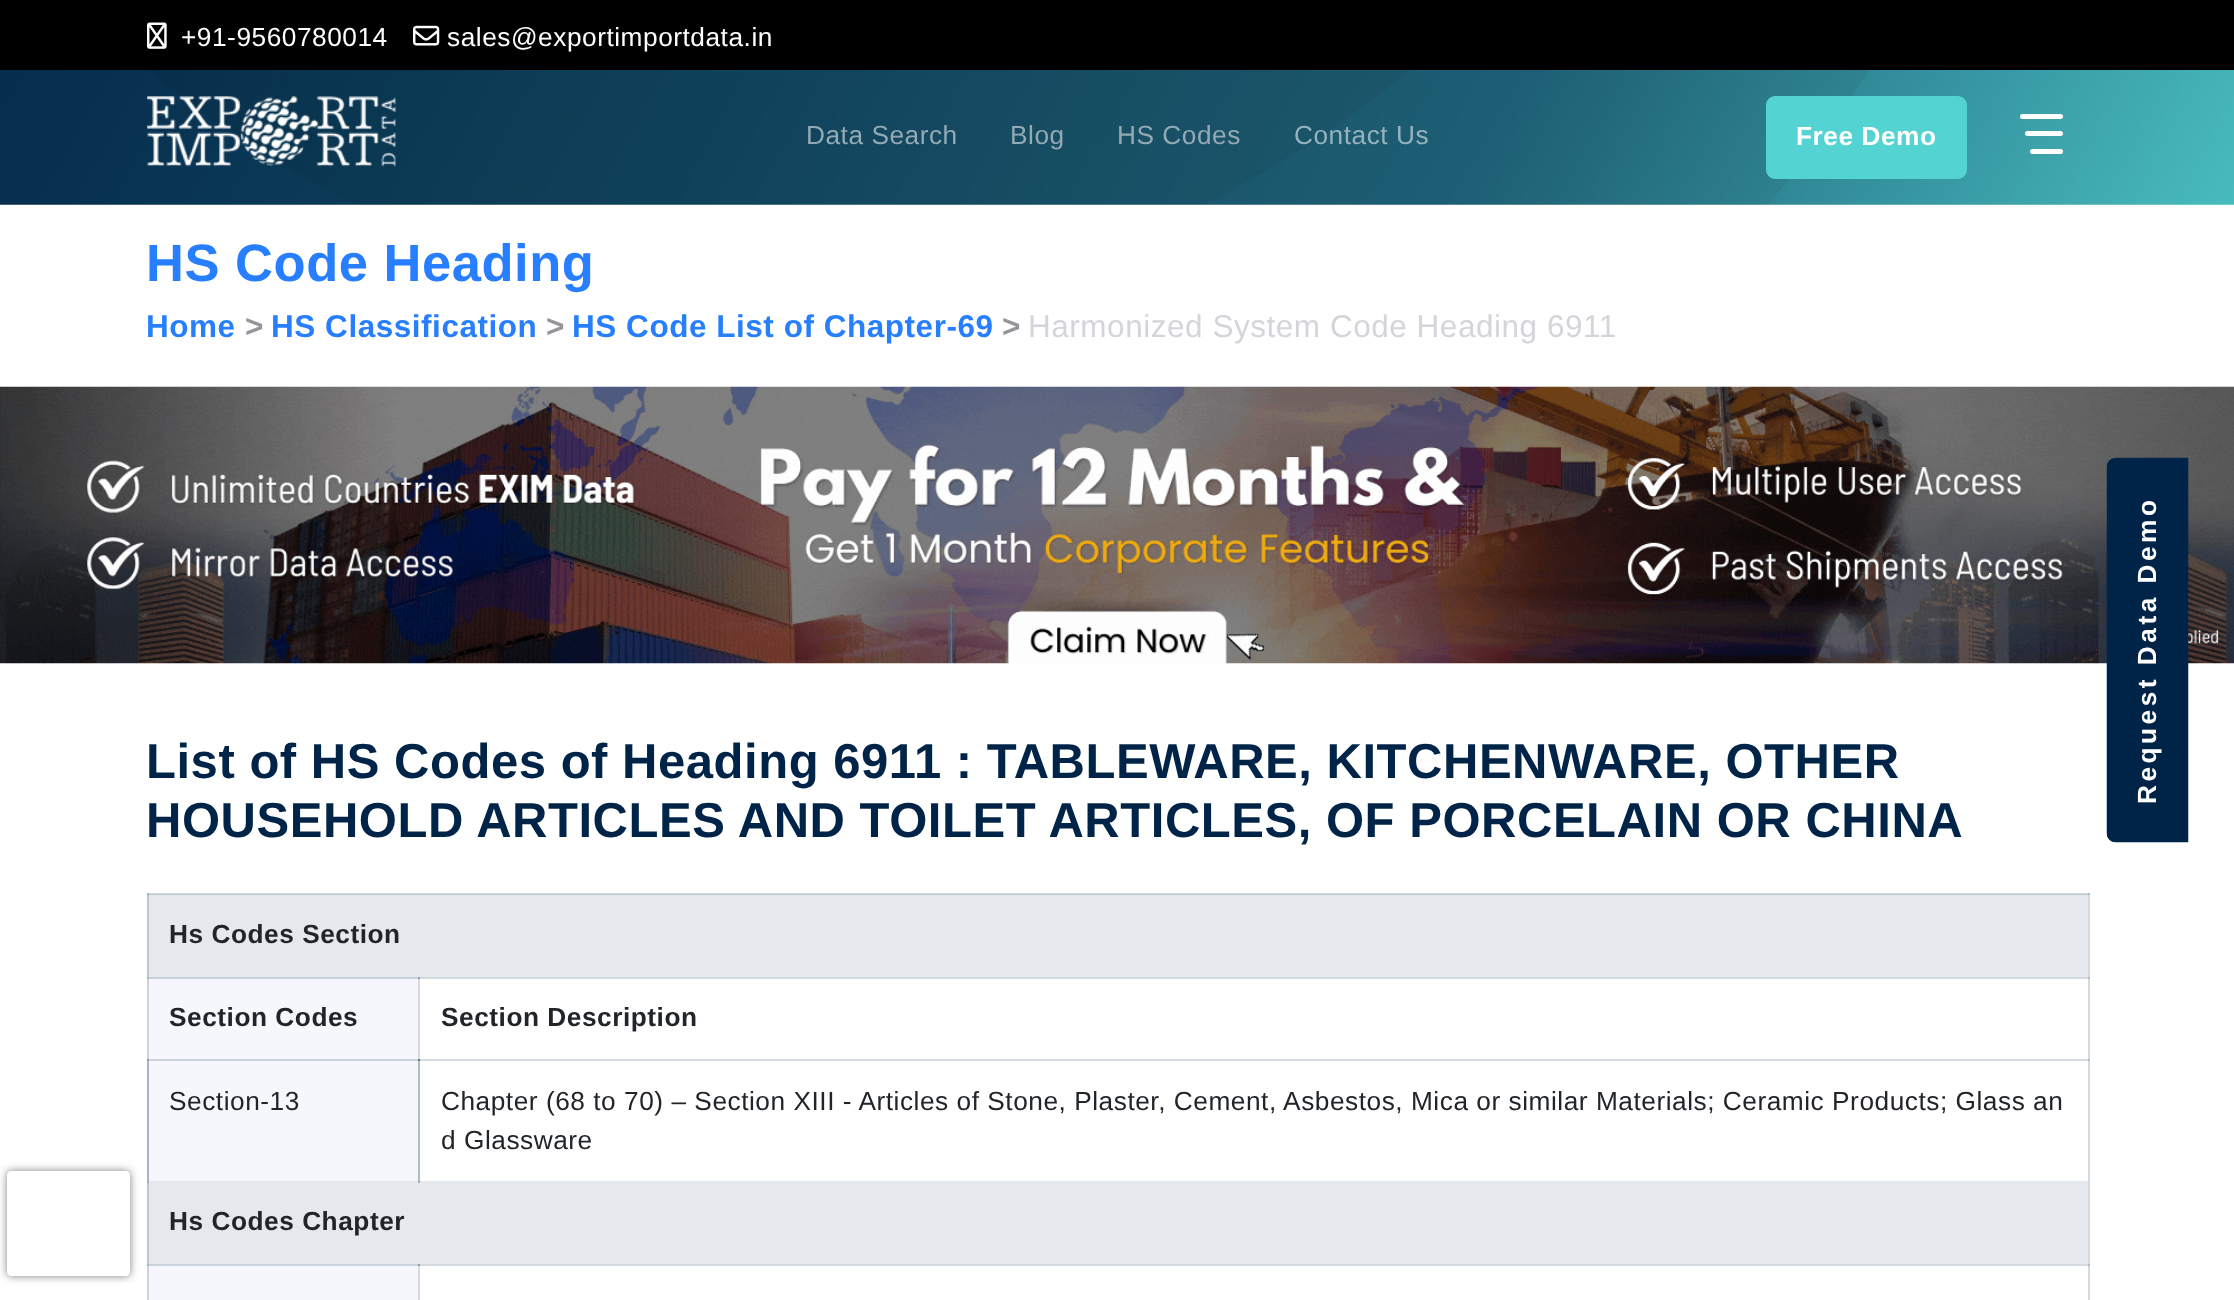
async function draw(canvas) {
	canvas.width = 2234;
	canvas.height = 1300;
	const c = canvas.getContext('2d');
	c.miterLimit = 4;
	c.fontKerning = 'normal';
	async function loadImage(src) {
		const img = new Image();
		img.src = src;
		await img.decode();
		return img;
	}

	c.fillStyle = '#fff';
	c.fillRect(0, 0, 2234, 1300);
	for (const [x, y, w, h, color] of [
		[418, 977, 2, 84, '#d4dae0'],
		[418, 977, 1672, 2, '#d4dae0'],
		[418, 977, 2, 2, '#92a1b0'],
		[418, 1059, 2, 124, '#b0bbc6'],
		[418, 1059, 1672, 2, '#d4dae0'],
		[418, 1059, 2, 2, '#647a8f'],
		[418, 1264, 2, 36, '#d4dae0'],
		[418, 1264, 1672, 2, '#d4dae0'],
		[418, 1264, 2, 2, '#92a1b0'],
		[2088, 893, 2, 407, '#d4dae0'],
		[2088, 977, 2, 2, '#b0bbc6'],
		[2088, 1059, 2, 2, '#b0bbc6'],
		[2088, 1264, 2, 2, '#b0bbc6'],
		[147, 893, 1943, 1, '#d4dae0'],
		[147, 893, 2, 1, '#b0bbc6'],
		[2088, 893, 2, 2, '#b0bbc6'],
		[0, 0, 2234, 70, '#000'],
	]) {
		c.fillStyle = color;
		c.fillRect(x, y, w, h);
	}
	c.drawImage(await loadImage('img1.png'), 147, 22, 20, 27);
	c.letterSpacing = '0.53px';
	c.font = '26.25px Liberation Sans';
	c.fillStyle = '#fff';
	c.fillText('+91-9560780014', 181, 46);
	c.drawImage(await loadImage('img2.png'), 413, 25, 27, 21);
	c.fillText('sales@exportimportdata.in', 447, 46);
	c.drawImage(await loadImage('img3.png'), 0, 70, 2234, 135);
	c.drawImage(await loadImage('img4.png'), 147, 96, 249, 71);
	c.fillStyle = '#93aab5';
	for (const [text, x, y] of [
		['Data Search', 806, 144],
		['Blog', 1010, 144],
		['HS Codes', 1117, 144],
	]) {
		c.fillText(text, x, y);
	}
	c.fillStyle = '#96b3bd';
	c.fillText('Contact Us', 1294, 144);
	c.fillStyle = '#53d3d1';
	c.beginPath();
	c.roundRect(1768, 98, 197, 79, 7);
	c.fill();
	c.strokeStyle = '#53d3d1';
	c.lineWidth = 4;
	c.stroke();
	c.font = 'bold 26.25px Liberation Sans';
	c.fillStyle = '#fff';
	c.fillText('Free Demo', 1796, 145);
	c.beginPath();
	c.roundRect(2020, 114, 43, 5, 2.5);
	c.fill();
	c.beginPath();
	c.roundRect(2025, 131, 38, 5, 2.5);
	c.fill();
	c.beginPath();
	c.roundRect(2030, 149, 33, 5, 2.5);
	c.fill();
	c.font = 'bold 52.5px Liberation Sans';
	c.fillStyle = '#277fff';
	c.fillText('HS Code Heading', 146, 281);
	c.font = 'bold 31.5px Liberation Sans';
	c.fillText('Home', 146, 337);
	c.fillStyle = '#94969c';
	c.fillText('>', 245, 337);
	c.fillStyle = '#277fff';
	c.fillText('HS Classification', 271, 337);
	c.fillStyle = '#94969c';
	c.fillText('>', 546, 337);
	c.fillStyle = '#277fff';
	c.fillText('HS Code List of Chapter-69', 572, 337);
	c.fillStyle = '#94969c';
	c.fillText('>', 1002, 337);
	c.font = '31.5px Liberation Sans';
	c.fillStyle = '#d3d5db';
	c.fillText('Harmonized System Code Heading 6911', 1028, 337);
	c.drawImage(await loadImage('img5.png'), 0, 386, 2234, 278);
	c.fillStyle = '#002447';
	c.beginPath();
	c.moveTo(2107, 834);
	c.lineTo(2107, 467);
	c.bezierCurveTo(2107, 462, 2111, 458, 2116, 458);
	c.lineTo(2188, 458);
	c.lineTo(2188, 842);
	c.lineTo(2116, 842);
	c.bezierCurveTo(2111, 842, 2107, 838, 2107, 834);
	c.closePath();
	c.fill();
	c.beginPath();
	c.moveTo(2108.5, 833.5);
	c.lineTo(2108.5, 466.5);
	c.bezierCurveTo(2108.5, 463, 2111.5, 459.5, 2115.5, 459.5);
	c.lineTo(2186.5, 459.5);
	c.lineTo(2186.5, 840.5);
	c.lineTo(2115.5, 840.5);
	c.bezierCurveTo(2111.5, 840.5, 2108.5, 837.5, 2108.5, 833.5);
	c.closePath();
	c.strokeStyle = '#002447';
	c.lineWidth = 3.5;
	c.stroke();
	c.letterSpacing = '3.5px';
	c.font = 'bold 26.25px Liberation Sans';
	c.fillStyle = '#fff';
	c.save();
	c.translate(2156, 804);
	c.rotate(-90 * Math.PI / 180);
	c.fillText('Request Data Demo', 0, 0);
	c.restore();
	c.save();
	c.beginPath();
	c.moveTo(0, 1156);
	c.lineTo(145, 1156);
	c.lineTo(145, 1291);
	c.lineTo(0, 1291);
	c.closePath();
	c.moveTo(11, 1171);
	c.lineTo(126, 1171);
	c.bezierCurveTo(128, 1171, 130, 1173, 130, 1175);
	c.lineTo(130, 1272);
	c.bezierCurveTo(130, 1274, 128, 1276, 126, 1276);
	c.lineTo(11, 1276);
	c.bezierCurveTo(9, 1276, 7, 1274, 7, 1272);
	c.lineTo(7, 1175);
	c.bezierCurveTo(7, 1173, 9, 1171, 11, 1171);
	c.closePath();
	c.clip('evenodd');
	c.fillStyle = '#808080';
	c.filter = 'blur(4.5px)';
	c.beginPath();
	c.roundRect(7, 1171, 123, 105, 4);
	c.fill();
	c.filter = 'none';
	c.restore();
	c.letterSpacing = '0.53px';
	c.font = 'bold 49px Liberation Sans';
	c.fillStyle = '#002447';
	c.fillText('List of HS Codes of Heading 6911 : TABLEWARE, KITCHENWARE, OTHER', 146, 778);
	c.fillText('HOUSEHOLD ARTICLES AND TOILET ARTICLES, OF PORCELAIN OR CHINA', 146, 837);
	for (const [x, y, w, h, color] of [
		[149, 895, 1939, 82, '#e5e8ec'],
		[147, 894, 2, 83, '#bec7d0'],
		[147, 894, 1941, 1, '#bec7d0'],
		[147, 894, 2, 1, '#9eabb9'],
	]) {
		c.fillStyle = color;
		c.fillRect(x, y, w, h);
	}
	c.font = 'bold 26.25px Liberation Sans';
	c.fillStyle = '#212529';
	c.fillText('Hs Codes Section', 169, 943);
	for (const [x, y, w, h, color] of [
		[149, 979, 269, 80, '#f5f7fc'],
		[147, 977, 271, 2, '#cbd3dd'],
		[147, 1059, 271, 2, '#cbd3dd'],
		[147, 977, 2, 84, '#cbd3dd'],
		[147, 977, 2, 2, '#a8b5c3'],
		[147, 1059, 2, 2, '#8b9cae'],
	]) {
		c.fillStyle = color;
		c.fillRect(x, y, w, h);
	}
	c.fillStyle = '#212529';
	c.fillText('Section Codes', 169, 1026);
	c.fillText('Section Description', 441, 1026);
	c.fillStyle = '#f5f7fc';
	c.fillRect(149, 1061, 269, 120);
	c.fillStyle = '#a8b5c3';
	c.fillRect(147, 1061, 2, 120);
	c.font = '26.25px Liberation Sans';
	c.fillStyle = '#212529';
	for (const [text, x, y] of [
		['Section-13', 169, 1110],
		['Chapter (68 to 70) – Section XIII - Articles of Stone, Plaster, Cement, Asbestos, Mica or similar Materials; Ceramic Products; Glass an', 441, 1110],
		['d Glassware', 441, 1149],
	]) {
		c.fillText(text, x, y);
	}
	for (const [x, y, w, h, color] of [
		[149, 1181, 1939, 83, '#e5e8ec'],
		[418, 1181, 2, 2, '#9eabb9'],
		[147, 1181, 2, 83, '#bec7d0'],
		[147, 1181, 2, 2, '#9eabb9'],
	]) {
		c.fillStyle = color;
		c.fillRect(x, y, w, h);
	}
	c.font = 'bold 26.25px Liberation Sans';
	c.fillStyle = '#212529';
	c.fillText('Hs Codes Chapter', 169, 1230);
	for (const [x, y, w, h, color] of [
		[149, 1266, 269, 34, '#f5f7fc'],
		[147, 1264, 271, 2, '#cbd3dd'],
		[147, 1264, 2, 36, '#cbd3dd'],
		[147, 1264, 2, 2, '#a8b5c3'],
	]) {
		c.fillStyle = color;
		c.fillRect(x, y, w, h);
	}
}

draw(document.querySelector('canvas'));
